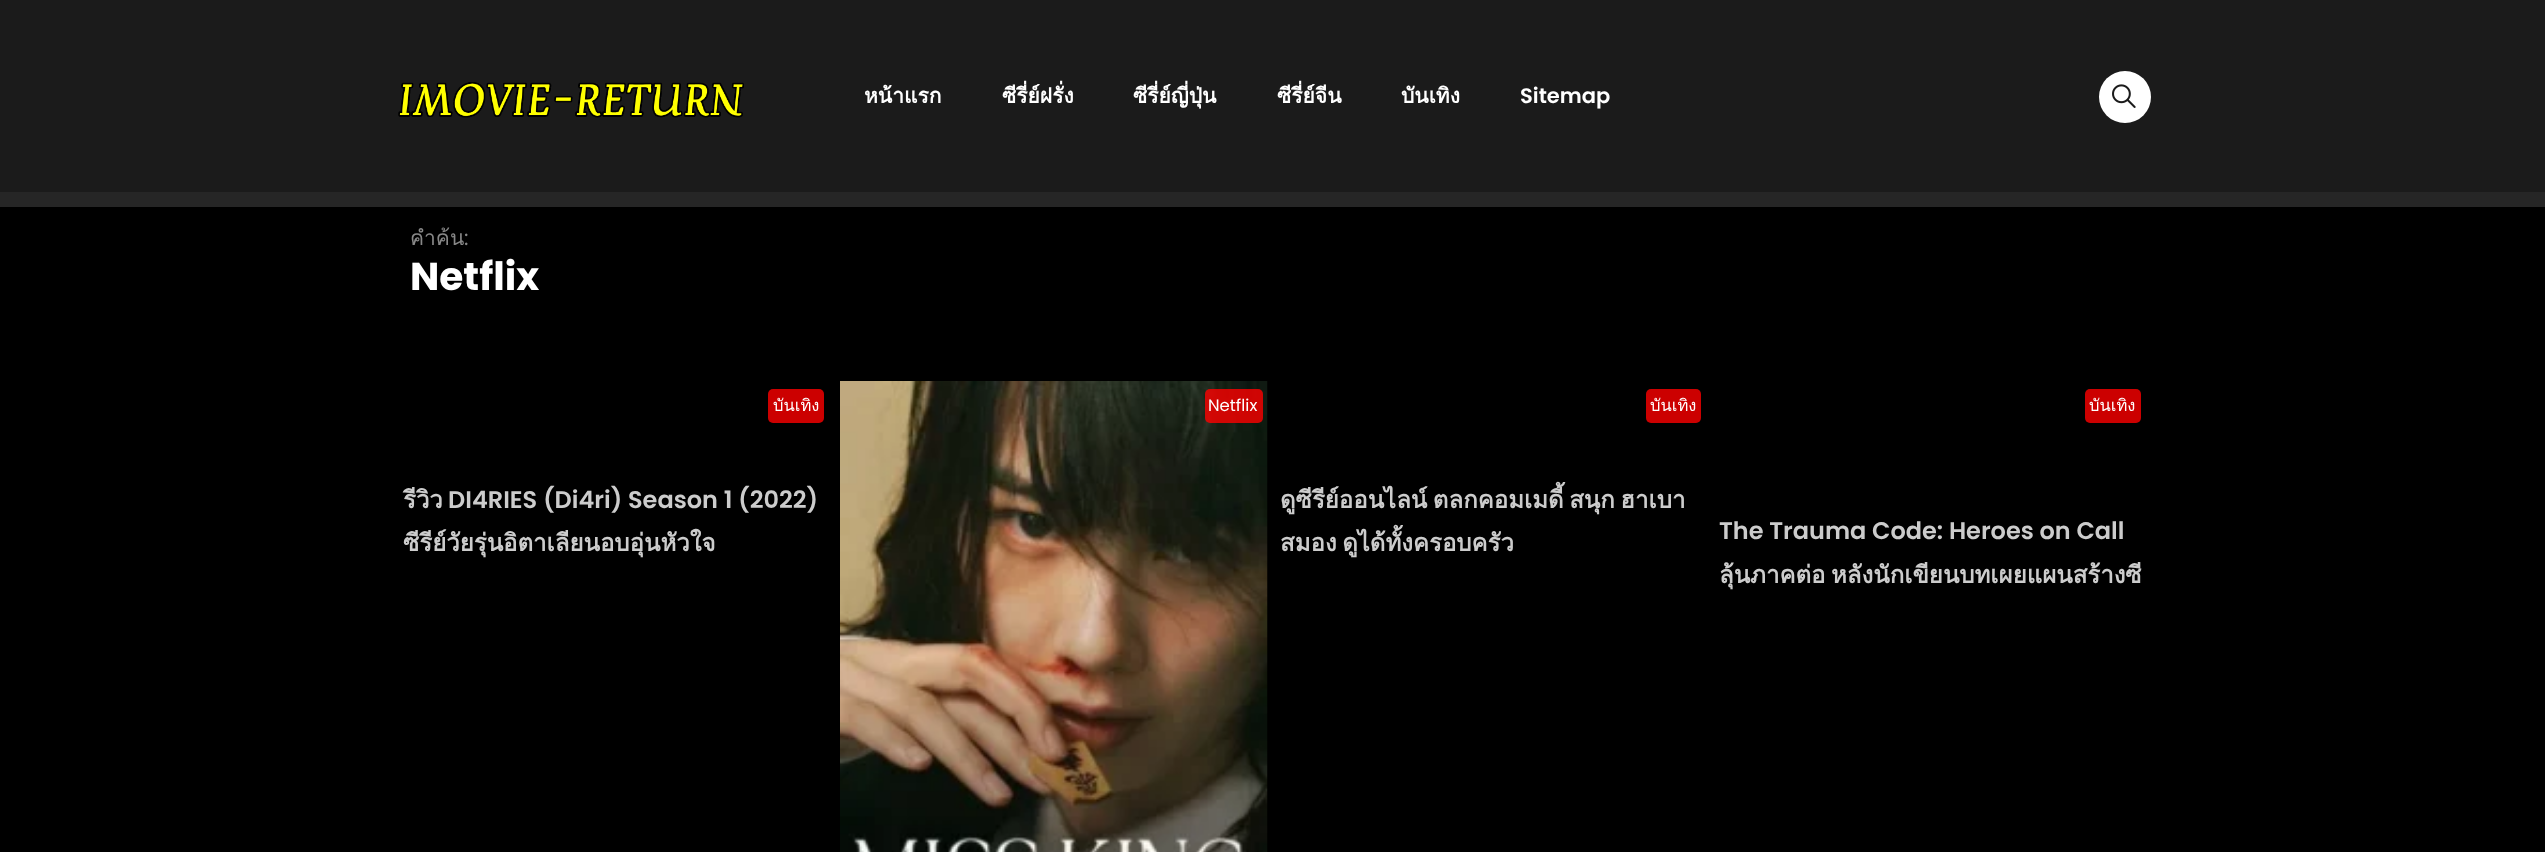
async function draw(canvas) {
	canvas.width = 2545;
	canvas.height = 852;
	const c = canvas.getContext('2d');
	c.miterLimit = 4;
	c.fontKerning = 'normal';
	async function loadImage(src) {
		const img = new Image();
		img.src = src;
		await img.decode();
		return img;
	}

	c.fillStyle = '#262626';
	c.fillRect(0, 0, 2545, 852);
	c.fillStyle = '#1b1b1b';
	c.fillRect(0, 0, 2545, 192);
	c.drawImage(await loadImage('img1.png'), 398, 82, 346, 36);
	c.font = 'bold 21px Loma';
	c.fillStyle = '#fff';
	for (const [text, x, y] of [
		['หน้าแรก', 864, 103],
		['ซีรี่ย์ฝรั่ง', 1002, 103],
		['ซีรี่ย์ญี่ปุ่น', 1133, 103],
		['ซีรี่ย์จีน', 1277, 103],
		['บันเทิง', 1401, 103],
	]) {
		c.fillText(text, x, y);
	}
	c.font = '600 21px Poppins';
	c.fillText('Sitemap', 1520, 103);
	c.beginPath();
	c.arc(2125, 97, 26, 0, 2 * Math.PI);
	c.fill();
	c.drawImage(await loadImage('img2.png'), 2112, 84, 24, 24);
	c.fillStyle = '#000';
	c.fillRect(0, 207, 2545, 645);
	c.font = '21px Loma';
	c.fillStyle = '#888';
	c.fillText('คำค้น', 410, 245);
	c.font = '21px Poppins';
	c.fillText(':', 464, 245);
	c.font = 'bold 39px Poppins';
	c.fillStyle = '#fff';
	c.fillText('Netflix', 410, 290);
	c.fillStyle = '#c00';
	c.beginPath();
	c.roundRect(768, 389, 56, 34, 5);
	c.fill();
	c.font = '16.5px Loma';
	c.fillStyle = '#fff';
	c.fillText('บันเทิง', 773, 411);
	c.save();
	c.beginPath();
	c.rect(396, 473, 438, 100);
	c.clip();
	c.font = 'bold 24px Loma';
	c.fillStyle = '#ccc';
	c.fillText('รีวิว', 403, 508);
	c.restore();
	c.font = '600 24px Poppins';
	c.fillStyle = '#ccc';
	c.fillText('DI4RIES (Di4ri) Season 1 (2022)', 448, 508);
	c.save();
	c.beginPath();
	c.rect(396, 473, 438, 100);
	c.clip();
	c.font = 'bold 24px Loma';
	c.fillText('ซีรีย์วัยรุ่นอิตาเลียนอบอุ่นหัวใจ', 403, 551);
	c.restore();
	c.drawImage(await loadImage('img3.png'), 840, 381, 428, 471);
	c.fillStyle = '#ff0000cc';
	c.beginPath();
	c.roundRect(1205, 389, 58, 34, 5);
	c.fill();
	c.font = '16.5px Poppins';
	c.fillStyle = '#fff';
	c.fillText('Netflix', 1208, 411);
	c.fillStyle = '#c00';
	c.beginPath();
	c.roundRect(1646, 389, 55, 34, 5);
	c.fill();
	c.font = '16.5px Loma';
	c.fillStyle = '#fff';
	c.fillText('บันเทิง', 1650, 411);
	c.save();
	c.beginPath();
	c.rect(1274, 473, 438, 100);
	c.clip();
	c.wordSpacing = '-2.5px';
	c.font = 'bold 24px Loma';
	c.fillStyle = '#ccc';
	c.fillText('ดูซีรีย์ออนไลน์ ตลกคอมเมดี้ สนุก ฮาเบา', 1280, 508);
	c.restore();
	c.wordSpacing = '-2.5px';
	c.font = 'bold 24px Loma';
	c.fillStyle = '#ccc';
	c.fillText('สมอง ดูได้ทั้งครอบครัว', 1280, 551);
	c.fillStyle = '#c00';
	c.beginPath();
	c.roundRect(2085, 389, 56, 34, 5);
	c.fill();
	c.wordSpacing = '0px';
	c.font = '16.5px Loma';
	c.fillStyle = '#fff';
	c.fillText('บันเทิง', 2089, 411);
	c.font = '600 24px Poppins';
	c.fillStyle = '#ccc';
	c.fillText('The Trauma Code: Heroes on Call', 1719, 539);
	c.save();
	c.beginPath();
	c.rect(1712, 504, 439, 101);
	c.clip();
	c.wordSpacing = '-2.5px';
	c.font = 'bold 24px Loma';
	c.fillText('ลุ้นภาคต่อ หลังนักเขียนบทเผยแผนสร้างซี', 1719, 583);
	c.restore();
}

draw(document.querySelector('canvas'));
